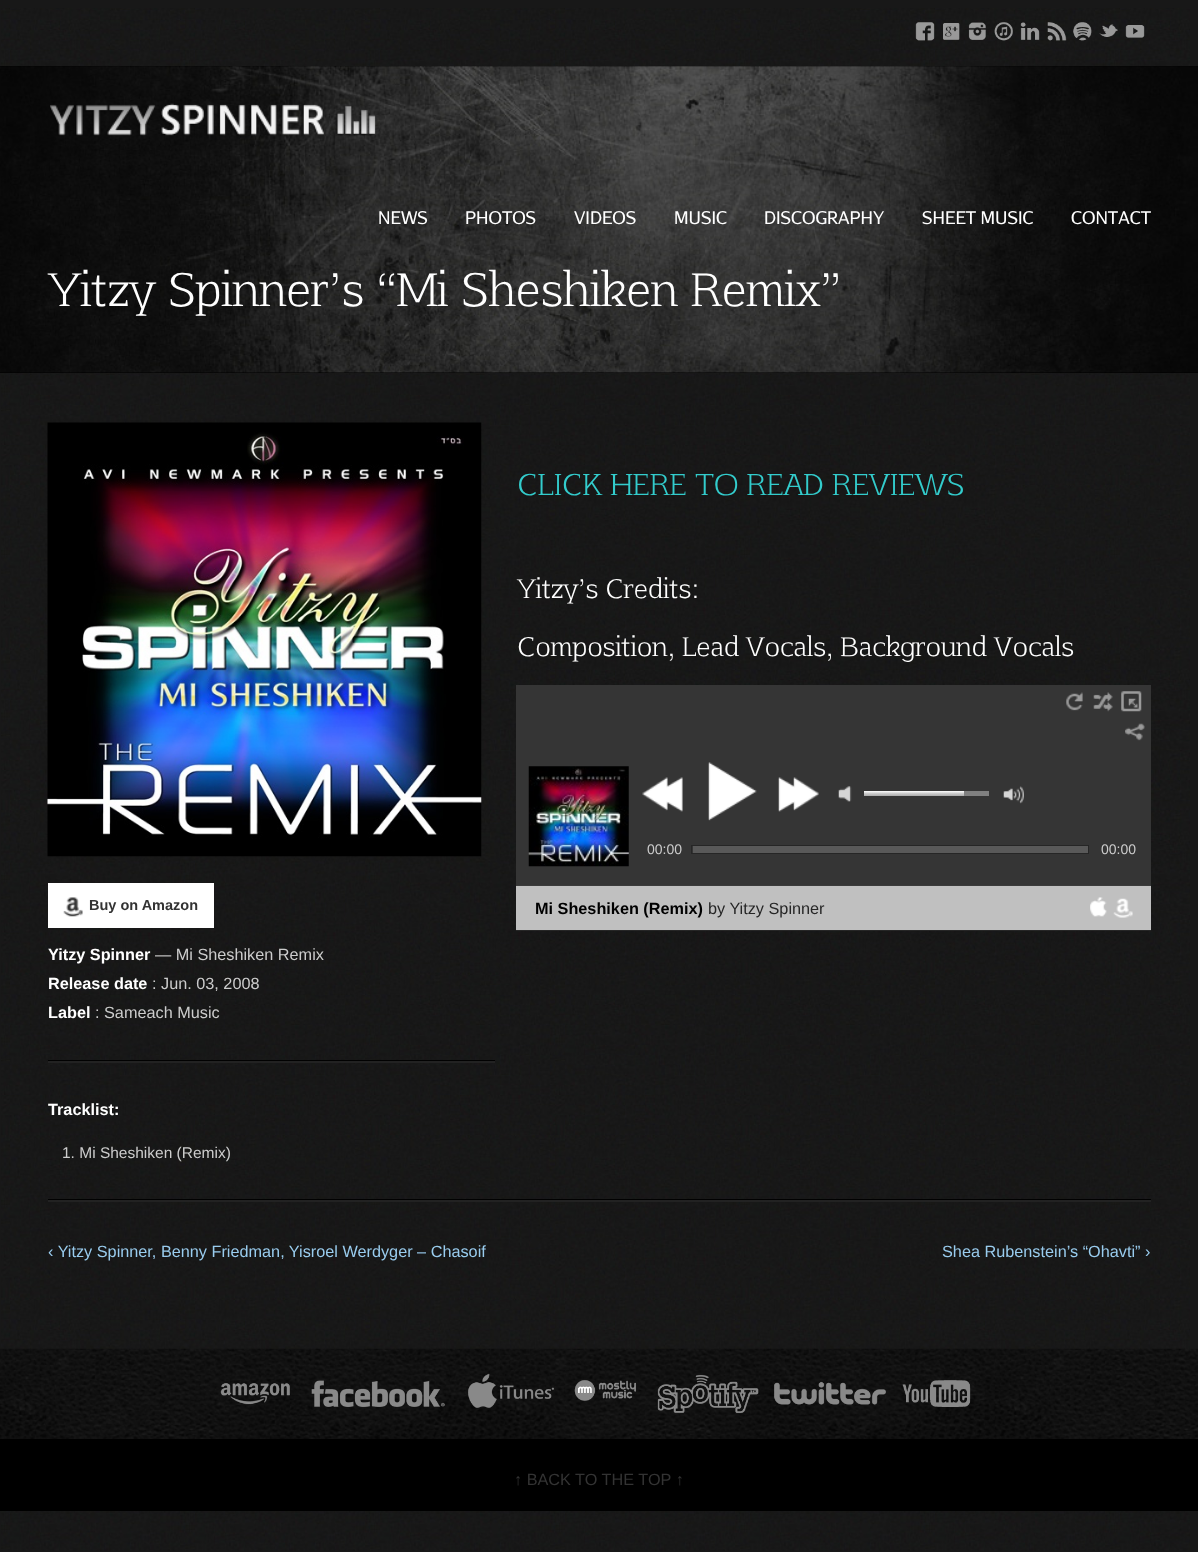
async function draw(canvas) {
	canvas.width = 1198;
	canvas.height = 1552;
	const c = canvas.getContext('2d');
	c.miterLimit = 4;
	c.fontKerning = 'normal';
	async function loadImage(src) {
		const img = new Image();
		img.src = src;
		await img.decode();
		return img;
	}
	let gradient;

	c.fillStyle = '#181818';
	c.fillRect(0, 0, 1198, 1552);
	c.drawImage(await loadImage('img1.png'), 1, 8, 1189, 1543);
	c.drawImage(await loadImage('img2.png'), 915, 22, 20, 19);
	c.drawImage(await loadImage('img3.png'), 943, 23, 17, 17);
	c.drawImage(await loadImage('img4.png'), 968, 22, 18, 18);
	c.drawImage(await loadImage('img5.png'), 994, 22, 19, 19);
	c.drawImage(await loadImage('img6.png'), 1020, 22, 20, 18);
	c.drawImage(await loadImage('img7.png'), 1047, 22, 20, 19);
	c.drawImage(await loadImage('img8.png'), 1073, 22, 19, 19);
	c.drawImage(await loadImage('img9.png'), 1099, 24, 19, 13);
	c.drawImage(await loadImage('img10.png'), 1125, 25, 20, 13);
	c.fillStyle = '#000';
	c.fillRect(0, 66, 1198, 307);
	c.drawImage(await loadImage('img11.png'), 0, 66, 1198, 307);
	c.drawImage(await loadImage('img12.png'), 50, 103, 326, 33);
	c.font = '17.5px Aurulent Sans';
	c.fillStyle = '#fff';
	for (const [text, x, y] of [
		['NEWS', 378, 224],
		['PHOTOS', 465, 224],
		['VIDEOS', 574, 224],
		['MUSIC', 674, 224],
		['DISCOGRAPHY', 764, 224],
		['SHEET MUSIC', 922, 224],
		['CONTACT', 1071, 224],
	]) {
		c.fillText(text, x, y);
	}
	c.font = '45.5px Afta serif';
	c.fillText('Yitzy Spinner’s “Mi Sheshiken Remix”', 48, 306);
	c.font = '29.25px Afta serif';
	c.fillStyle = '#3cc';
	c.fillText('CLICK HERE TO READ REVIEWS', 517, 495);
	c.font = '26px Afta serif';
	c.fillStyle = '#fff';
	c.fillText('Yitzy’s Credits:', 517, 598);
	c.fillText('Composition, Lead Vocals, Background Vocals', 517, 656);
	c.fillStyle = '#353535';
	c.fillRect(516, 685, 635, 200);
	c.drawImage(await loadImage('img13.png'), 528, 766, 101, 101);
	c.drawImage(await loadImage('img14.png'), 1121, 691, 21, 21);
	c.drawImage(await loadImage('img15.png'), 1125, 723, 20, 18);
	c.drawImage(await loadImage('img16.png'), 1066, 692, 17, 19);
	c.drawImage(await loadImage('img17.png'), 1093, 692, 20, 20);
	c.drawImage(await loadImage('img18.png'), 642, 777, 41, 35);
	c.drawImage(await loadImage('img19.png'), 708, 762, 49, 59);
	c.drawImage(await loadImage('img20.png'), 778, 777, 41, 35);
	c.drawImage(await loadImage('img21.png'), 838, 786, 14, 16);
	c.drawImage(await loadImage('img22.png'), 1003, 786, 21, 18);
	c.fillStyle = '#808080';
	c.fillRect(964, 791, 25, 5);
	gradient = c.createLinearGradient(914, 791, 914, 796);
	gradient.addColorStop(0, '#fff');
	gradient.addColorStop(0.5, '#ccc');
	gradient.addColorStop(1, '#aaa');
	c.fillStyle = gradient;
	c.fillRect(864, 791, 100, 5);
	c.font = '14px Liberation Sans';
	c.fillStyle = '#ccc';
	c.fillText('00:00', 647, 854);
	c.strokeStyle = '#262626';
	c.strokeRect(691.5, 845.5, 397, 8);
	c.fillStyle = '#595959';
	c.fillRect(693, 846, 395, 7);
	c.fillStyle = '#ccc';
	c.fillText('00:00', 1101, 854);
	for (const [x, y, w, h, color] of [
		[516, 886, 635, 44, '#c0c0c0'],
		[516, 885, 635, 1, '#3b3b3b'],
		[516, 930, 635, 1, '#262626'],
	]) {
		c.fillStyle = color;
		c.fillRect(x, y, w, h);
	}
	c.font = 'bold 16.25px Liberation Sans';
	c.fillStyle = '#000';
	c.fillText('Mi Sheshiken (Remix)', 535, 914);
	c.font = '16.25px Liberation Sans';
	c.fillStyle = '#262626';
	c.fillText('by Yitzy Spinner', 708, 914);
	c.drawImage(await loadImage('img23.png'), 1090, 897, 17, 20);
	c.drawImage(await loadImage('img24.png'), 1113, 898, 20, 20);
	c.drawImage(await loadImage('img25.png'), 47, 422, 435, 435);
	c.fillStyle = '#fff';
	c.fillRect(48, 883, 166, 45);
	c.drawImage(await loadImage('img26.png'), 63, 897, 20, 20);
	c.font = 'bold 14.5px Liberation Sans';
	c.fillStyle = '#333';
	c.fillText('Buy on Amazon', 89, 910);
	c.font = 'bold 16.25px Liberation Sans';
	c.fillStyle = '#fff';
	c.fillText('Yitzy Spinner', 48, 960);
	c.font = '16.25px Liberation Sans';
	c.fillStyle = '#ccc';
	c.fillText('— Mi Sheshiken Remix', 155, 960);
	c.font = 'bold 16.25px Liberation Sans';
	c.fillStyle = '#fff';
	c.fillText('Release date', 48, 989);
	c.font = '16.25px Liberation Sans';
	c.fillStyle = '#ccc';
	c.fillText(': Jun. 03, 2008', 152, 989);
	c.font = 'bold 16.25px Liberation Sans';
	c.fillStyle = '#fff';
	c.fillText('Label', 48, 1018);
	c.font = '16.25px Liberation Sans';
	c.fillStyle = '#ccc';
	c.fillText(': Sameach Music', 95, 1018);
	c.fillStyle = '#222';
	c.fillRect(48, 1061, 447, 2);
	c.fillStyle = '#010101';
	c.fillRect(48, 1060, 447, 1);
	c.font = 'bold 16.25px Liberation Sans';
	c.fillStyle = '#fff';
	c.fillText('Tracklist:', 48, 1115);
	c.font = '15.5px Liberation Sans';
	c.fillStyle = '#ccc';
	c.fillText('1. Mi Sheshiken (Remix)', 62, 1158);
	c.fillStyle = '#222';
	c.fillRect(48, 1200, 1103, 2);
	c.fillStyle = '#010101';
	c.fillRect(48, 1199, 1103, 1);
	c.font = '16.25px Liberation Sans';
	c.fillStyle = '#9ce';
	c.fillText('‹ Yitzy Spinner, Benny Friedman, Yisroel Werdyger – Chasoif', 48, 1257);
	c.fillText('Shea Rubenstein’s “Ohavti” ›', 942, 1257);
	c.drawImage(await loadImage('img27.png'), 0, 1348, 1198, 91);
	c.drawImage(await loadImage('img28.png'), 220, 1383, 70, 22);
	c.drawImage(await loadImage('img29.png'), 311, 1380, 134, 27);
	c.drawImage(await loadImage('img30.png'), 468, 1373, 86, 35);
	c.drawImage(await loadImage('img31.png'), 574, 1380, 62, 21);
	c.drawImage(await loadImage('img32.png'), 657, 1375, 102, 38);
	c.drawImage(await loadImage('img33.png'), 774, 1381, 112, 24);
	c.drawImage(await loadImage('img34.png'), 902, 1380, 69, 27);
	c.fillStyle = '#000';
	c.fillRect(0, 1439, 1198, 72);
	c.fillStyle = '#333';
	c.fillText('↑ BACK TO THE TOP ↑', 514, 1485);
}

draw(document.querySelector('canvas'));
